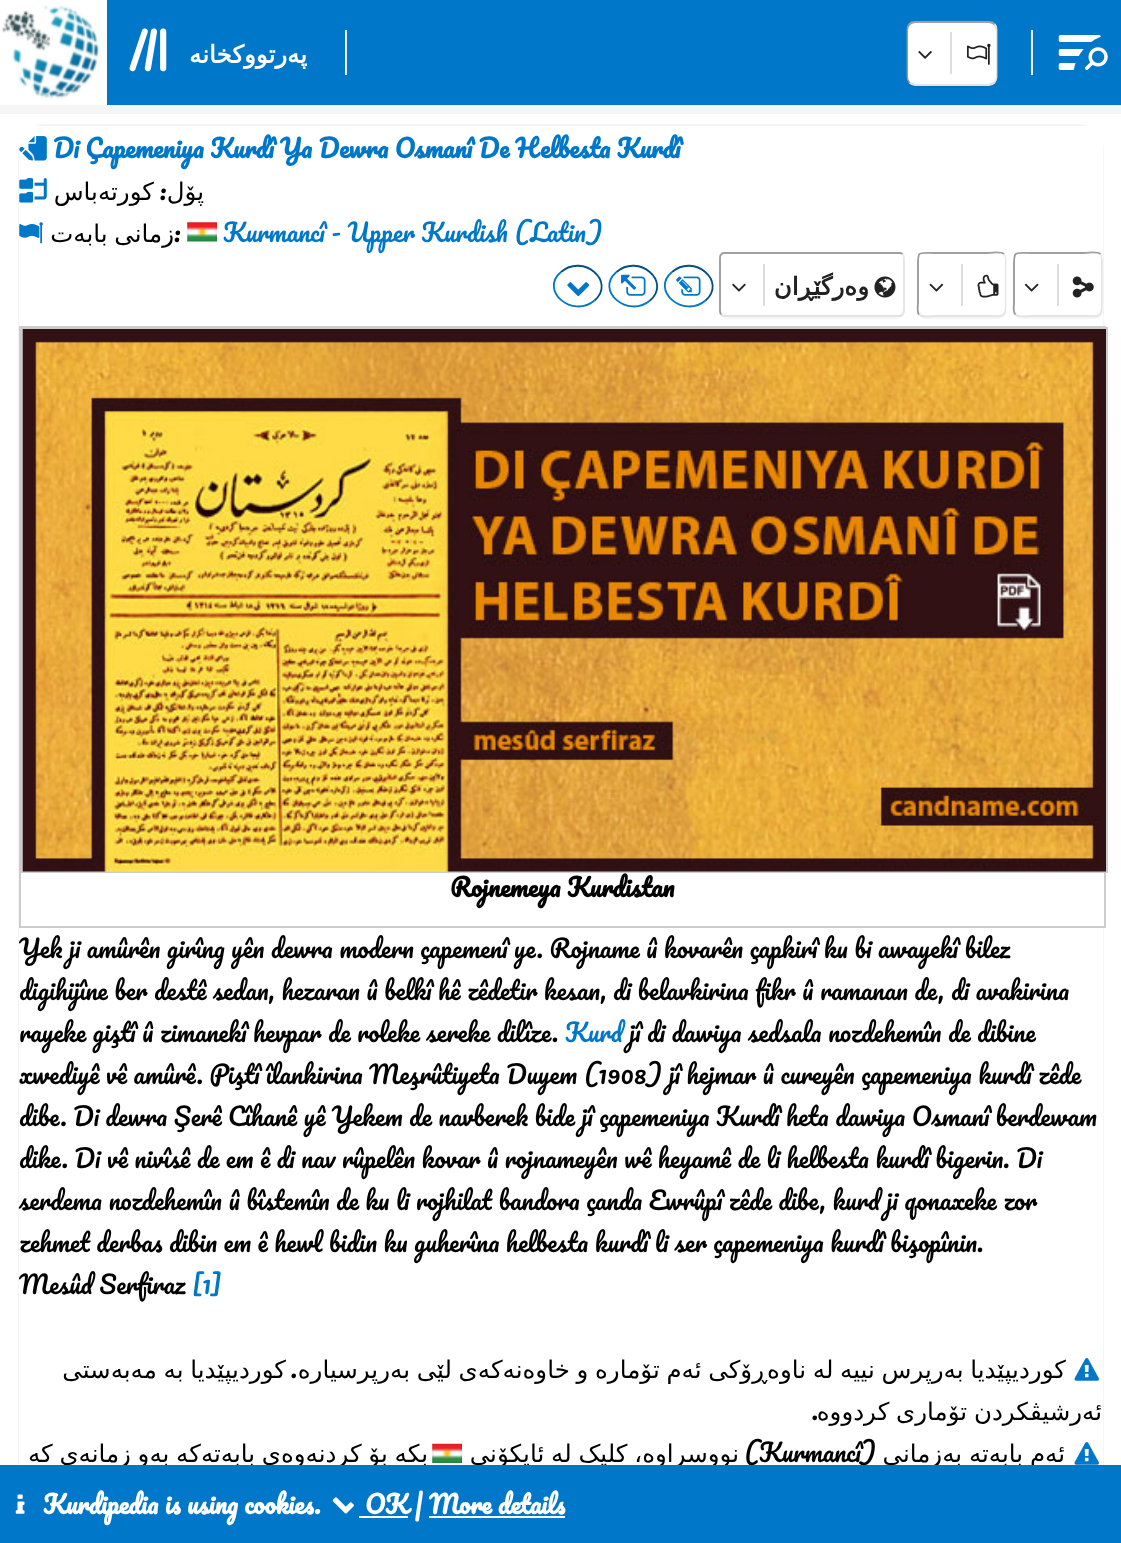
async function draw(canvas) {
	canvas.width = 1121;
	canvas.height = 1543;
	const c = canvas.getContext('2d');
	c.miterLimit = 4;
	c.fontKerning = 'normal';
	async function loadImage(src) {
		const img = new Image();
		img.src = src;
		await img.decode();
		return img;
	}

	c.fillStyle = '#fff';
	c.fillRect(0, 0, 1121, 1543);
	c.fillStyle = '#0077c8';
	c.fillRect(107, 0, 1014, 105);
	c.drawImage(await loadImage('img1.png'), 1, 5, 98, 94);
	c.drawImage(await loadImage('img2.png'), 129, 28, 38, 44);
	c.direction = 'rtl';
	c.font = 'bold 24.5px DejaVu Sans';
	c.fillStyle = '#fff';
	c.fillText('پەرتووکخانە', 307, 63);
	c.fillStyle = '#eee';
	c.fillRect(345, 30, 2, 45);
	c.beginPath();
	c.moveTo(994.5, 24);
	c.bezierCurveTo(996, 25.5, 996.5, 27.5, 996.5, 30);
	c.lineTo(996.5, 77);
	c.bezierCurveTo(996.5, 79, 996, 81, 994.5, 82.5);
	c.bezierCurveTo(993, 84, 991, 85, 989, 85);
	c.lineTo(915, 85);
	c.bezierCurveTo(913, 85, 911, 84, 909.5, 82.5);
	c.strokeStyle = '#eee';
	c.lineWidth = 1.8;
	c.stroke();
	c.beginPath();
	c.moveTo(909.5, 82.5);
	c.bezierCurveTo(908, 81, 907.5, 79, 907.5, 77);
	c.lineTo(907.5, 30);
	c.bezierCurveTo(907.5, 27.5, 908, 25.5, 909.5, 24);
	c.bezierCurveTo(911, 22.5, 913, 22, 915, 22);
	c.lineTo(989, 22);
	c.bezierCurveTo(991, 22, 993, 22.5, 994.5, 24);
	c.strokeStyle = '#9f9f9f';
	c.stroke();
	c.fillStyle = '#0000000a';
	c.beginPath();
	c.moveTo(909, 26);
	c.bezierCurveTo(908, 27, 907, 30, 907, 32);
	c.lineTo(907, 79);
	c.bezierCurveTo(907, 84, 911, 88, 916, 88);
	c.lineTo(989, 88);
	c.bezierCurveTo(994, 88, 998, 84, 998, 79);
	c.lineTo(998, 32);
	c.bezierCurveTo(998, 28, 995, 25, 992, 23);
	c.bezierCurveTo(994, 25, 996, 27, 996, 30);
	c.lineTo(996, 77);
	c.bezierCurveTo(996, 81, 993, 84, 989, 84);
	c.lineTo(915, 84);
	c.bezierCurveTo(911, 84, 908, 81, 908, 77);
	c.lineTo(908, 30);
	c.bezierCurveTo(908, 28, 909, 27, 909, 26);
	c.closePath();
	c.fill();
	c.fillStyle = '#fff';
	c.beginPath();
	c.roundRect(908, 23, 88, 61, 7);
	c.fill();
	c.drawImage(await loadImage('img3.png'), 918, 51, 14, 8);
	c.fillStyle = '#ddd';
	c.fillRect(950, 32, 2, 42);
	c.drawImage(await loadImage('img4.png'), 967, 43, 24, 22);
	c.fillStyle = '#eee';
	c.fillRect(1031, 30, 2, 45);
	c.drawImage(await loadImage('img6.png'), 1058, 35, 43, 35);
	c.fillStyle = '#0077c8';
	c.beginPath();
	c.moveTo(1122, 34);
	c.lineTo(1116, 34);
	c.bezierCurveTo(1092, 34, 1073, 54, 1073, 78);
	c.lineTo(1073, 83);
	c.lineTo(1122, 83);
	c.closePath();
	c.fill();
	c.drawImage(await loadImage('img5.png'), 1085, 47, 23, 23);
	c.fillStyle = '#f5f5f5';
	c.fillRect(0, 105, 1121, 9);
	c.beginPath();
	c.roundRect(18, 124, 1086, 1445, 26);
	c.fill();
	c.fillStyle = '#fff';
	c.fillRect(19, 126, 1084, 1339);
	c.drawImage(await loadImage('img7.png'), 19, 136, 28, 25);
	c.direction = 'ltr';
	c.font = 'bold 24.5px Pacifico';
	c.fillStyle = '#0077c8';
	c.fillText('Di Çapemeniya Kurdî Ya Dewra Osmanî De Helbesta Kurdî', 53, 158);
	c.drawImage(await loadImage('img8.png'), 19, 178, 28, 25);
	c.direction = 'rtl';
	c.font = '24.5px DejaVu Sans';
	c.fillStyle = '#000';
	c.fillText('کورتەباس', 154, 200);
	c.font = '24.5px Pacifico';
	c.fillText(':', 166, 200);
	c.font = '24.5px DejaVu Sans';
	c.fillText('پۆل', 204, 200);
	c.drawImage(await loadImage('img9.png'), 19, 222, 24, 22);
	c.wordSpacing = '-1px';
	c.fillText('زمانی بابەت', 174, 242);
	c.wordSpacing = '0px';
	c.direction = 'ltr';
	c.font = '24.5px Pacifico';
	c.fillText(':', 174, 242);
	c.drawImage(await loadImage('img10.png'), 187, 222, 30, 20);
	c.fillStyle = '#0077c8';
	c.fillText('Kurmancî - Upper Kurdish (Latin)', 223, 242);
	c.beginPath();
	c.moveTo(561, 272);
	c.bezierCurveTo(539, 290.5, 572.5, 319, 594.5, 300.5);
	c.strokeStyle = '#0077c8';
	c.stroke();
	c.beginPath();
	c.moveTo(594.5, 300.5);
	c.bezierCurveTo(616.5, 281.5, 583, 253, 561, 272);
	c.strokeStyle = '#004f85';
	c.stroke();
	c.drawImage(await loadImage('img11.png'), 567, 282, 23, 15);
	c.beginPath();
	c.moveTo(616.5, 272);
	c.bezierCurveTo(594.5, 290.5, 628, 319, 650, 300.5);
	c.strokeStyle = '#0077c8';
	c.stroke();
	c.beginPath();
	c.moveTo(650, 300.5);
	c.bezierCurveTo(672, 281.5, 638.5, 253, 616.5, 272);
	c.strokeStyle = '#004f85';
	c.stroke();
	c.drawImage(await loadImage('img12.png'), 621, 274, 25, 22);
	c.beginPath();
	c.moveTo(672, 272);
	c.bezierCurveTo(650, 290.5, 683.5, 319, 705.5, 300.5);
	c.strokeStyle = '#0077c8';
	c.stroke();
	c.beginPath();
	c.moveTo(705.5, 300.5);
	c.bezierCurveTo(727.5, 281.5, 694, 253, 672, 272);
	c.strokeStyle = '#004f85';
	c.stroke();
	c.drawImage(await loadImage('img13.png'), 676, 276, 25, 20);
	c.beginPath();
	c.moveTo(902.5, 254);
	c.bezierCurveTo(903.5, 255, 904, 256, 904, 257);
	c.lineTo(904, 311.5);
	c.bezierCurveTo(904, 312.5, 903.5, 314, 902.5, 314.5);
	c.bezierCurveTo(902, 315.5, 900.5, 316, 899.5, 316);
	c.lineTo(724.5, 316);
	c.bezierCurveTo(723.5, 316, 722, 315.5, 721.5, 314.5);
	c.strokeStyle = '#eee';
	c.stroke();
	c.beginPath();
	c.moveTo(721.5, 314.5);
	c.bezierCurveTo(720.5, 314, 720, 312.5, 720, 311.5);
	c.lineTo(720, 257);
	c.bezierCurveTo(720, 256, 720.5, 255, 721.5, 254);
	c.bezierCurveTo(722, 253.5, 723.5, 253, 724.5, 253);
	c.lineTo(899.5, 253);
	c.bezierCurveTo(900.5, 253, 902, 253.5, 902.5, 254);
	c.strokeStyle = '#9f9f9f';
	c.stroke();
	c.fillStyle = '#0000000a';
	c.beginPath();
	c.moveTo(724, 255);
	c.bezierCurveTo(721, 256, 719, 259, 719, 263);
	c.lineTo(719, 310);
	c.bezierCurveTo(719, 315, 723, 319, 728, 319);
	c.lineTo(896, 319);
	c.bezierCurveTo(901, 319, 905, 315, 905, 310);
	c.lineTo(905, 263);
	c.bezierCurveTo(905, 259, 903, 256, 900, 255);
	c.bezierCurveTo(902, 256, 903, 258, 903, 261);
	c.lineTo(903, 308);
	c.bezierCurveTo(903, 312, 900, 315, 896, 315);
	c.lineTo(728, 315);
	c.bezierCurveTo(724, 315, 721, 312, 721, 308);
	c.lineTo(721, 261);
	c.bezierCurveTo(721, 258, 722, 256, 724, 255);
	c.closePath();
	c.fill();
	c.drawImage(await loadImage('img14.png'), 732, 283, 14, 9);
	c.fillStyle = '#ddd';
	c.fillRect(763, 264, 2, 42);
	c.direction = 'rtl';
	c.font = 'bold 24.5px DejaVu Sans';
	c.fillStyle = '#222';
	c.fillText('وەرگێڕان', 869, 295);
	c.drawImage(await loadImage('img15.png'), 874, 276, 22, 22);
	c.beginPath();
	c.moveTo(1004, 254);
	c.bezierCurveTo(1007, 257, 1005.5, 264.5, 1005.5, 266.5);
	c.lineTo(1005.5, 302.5);
	c.bezierCurveTo(1005.5, 319, 1005.5, 316, 988, 316);
	c.lineTo(935.5, 316);
	c.bezierCurveTo(934, 316, 922.5, 318, 919, 314.5);
	c.strokeStyle = '#eee';
	c.stroke();
	c.beginPath();
	c.moveTo(919, 314.5);
	c.bezierCurveTo(916.5, 312, 918, 304, 918, 302.5);
	c.lineTo(918, 266.5);
	c.bezierCurveTo(918, 250, 917.5, 253, 935.5, 253);
	c.lineTo(988, 253);
	c.bezierCurveTo(989, 253, 1001, 251, 1004, 254);
	c.strokeStyle = '#9f9f9f';
	c.stroke();
	c.fillStyle = '#0000000a';
	c.beginPath();
	c.moveTo(921, 255);
	c.bezierCurveTo(919, 257, 917, 260, 917, 263);
	c.lineTo(917, 310);
	c.bezierCurveTo(917, 315, 921, 319, 926, 319);
	c.lineTo(997, 319);
	c.bezierCurveTo(1002, 319, 1006, 315, 1006, 310);
	c.lineTo(1006, 263);
	c.bezierCurveTo(1006, 260, 1005, 258, 1003, 256);
	c.bezierCurveTo(1004, 257, 1004, 259, 1004, 261);
	c.lineTo(1004, 308);
	c.bezierCurveTo(1004, 312, 1001, 315, 998, 315);
	c.lineTo(926, 315);
	c.bezierCurveTo(922, 315, 919, 312, 919, 308);
	c.lineTo(919, 261);
	c.bezierCurveTo(919, 259, 920, 257, 921, 255);
	c.closePath();
	c.fill();
	c.fillStyle = '#fff';
	c.beginPath();
	c.roundRect(919, 254, 86, 61, 7);
	c.fill();
	c.drawImage(await loadImage('img16.png'), 929, 283, 15, 9);
	c.fillStyle = '#ddd';
	c.fillRect(961, 264, 2, 42);
	c.drawImage(await loadImage('img17.png'), 977, 274, 22, 24);
	c.beginPath();
	c.moveTo(1100.5, 254);
	c.bezierCurveTo(1103, 257, 1101.5, 264.5, 1101.5, 266.5);
	c.lineTo(1101.5, 302.5);
	c.bezierCurveTo(1101.5, 319, 1102, 316, 1084, 316);
	c.lineTo(1031.5, 316);
	c.bezierCurveTo(1030.5, 316, 1018.5, 318, 1015.5, 314.5);
	c.strokeStyle = '#eee';
	c.stroke();
	c.beginPath();
	c.moveTo(1015.5, 314.5);
	c.bezierCurveTo(1012.5, 312, 1014, 304, 1014, 302.5);
	c.lineTo(1014, 266.5);
	c.bezierCurveTo(1014, 250, 1014, 253, 1031.5, 253);
	c.lineTo(1084, 253);
	c.bezierCurveTo(1085.5, 253, 1097, 251, 1100.5, 254);
	c.strokeStyle = '#9f9f9f';
	c.stroke();
	c.fillStyle = '#0000000a';
	c.beginPath();
	c.moveTo(1018, 255);
	c.bezierCurveTo(1015, 256, 1013, 259, 1013, 263);
	c.lineTo(1013, 310);
	c.bezierCurveTo(1013, 315, 1017, 319, 1022, 319);
	c.lineTo(1094, 319);
	c.bezierCurveTo(1099, 319, 1103, 315, 1103, 310);
	c.lineTo(1103, 263);
	c.bezierCurveTo(1103, 259, 1100, 256, 1097, 254);
	c.bezierCurveTo(1099, 256, 1101, 258, 1101, 261);
	c.lineTo(1101, 308);
	c.bezierCurveTo(1101, 312, 1098, 315, 1094, 315);
	c.lineTo(1022, 315);
	c.bezierCurveTo(1018, 315, 1015, 312, 1015, 308);
	c.lineTo(1015, 261);
	c.bezierCurveTo(1015, 258, 1016, 256, 1018, 255);
	c.closePath();
	c.fill();
	c.fillStyle = '#fff';
	c.beginPath();
	c.roundRect(1015, 254, 86, 61, 7);
	c.fill();
	c.drawImage(await loadImage('img18.png'), 1024, 283, 15, 9);
	c.fillStyle = '#ddd';
	c.fillRect(1057, 264, 2, 42);
	c.drawImage(await loadImage('img19.png'), 1072, 276, 22, 22);
	c.fillStyle = '#fff';
	c.fillRect(1103, 873, 1, 53);
	c.strokeStyle = '#ccc';
	c.lineWidth = 2;
	c.strokeRect(20, 327, 1085, 600);
	c.strokeRect(22, 328, 1085, 544);
	c.drawImage(await loadImage('img20.png'), 22, 329, 1084, 543);
	c.direction = 'ltr';
	c.font = 'bold 24.5px Pacifico';
	c.fillStyle = '#000';
	c.fillText('Rojnemeya Kurdistan', 450, 897);
	c.font = '24.5px Pacifico';
	for (const [text, x, y] of [
		['Yek ji amûrên girîng yên dewra modern çapemenî ye. Rojname û kovarên çapkirî ku bi awayekî bilez', 19, 958],
		['digihijîne ber destê sedan, hezaran û belkî hê zêdetir kesan, di belavkirina fikr û ramanan de, di avakirina', 19, 1000],
		['rayeke giştî û zimanekî hevpar de roleke sereke dilîze.', 19, 1042],
	]) {
		c.fillText(text, x, y);
	}
	c.fillStyle = '#0077c8';
	c.fillText('Kurd', 565, 1042);
	c.fillStyle = '#000';
	for (const [text, x, y] of [
		['jî di dawiya sedsala nozdehemîn de dibine', 629, 1042],
		['xwediyê vê amûrê. Piştî îlankirina Meşrûtiyeta Duyem (1908) jî hejmar û cureyên çapemeniya kurdî zêde', 19, 1084],
		['dibe. Di dewra Şerê Cîhanê yê Yekem de navberek bide jî çapemeniya Kurdî heta dawiya Osmanî berdewam', 19, 1126],
		['dike. Di vê nivîsê de em ê di nav rûpelên kovar û rojnameyên wê heyamê de li helbesta kurdî bigerin. Di', 19, 1168],
		['serdema nozdehemîn û bîstemîn de ku li rojhilat bandora çanda Ewrûpî zêde dibe, kurd ji qonaxeke zor', 19, 1210],
		['zehmet derbas dibin em ê hewl bidin ku guherîna helbesta kurdî li ser çapemeniya kurdî bişopînin.', 19, 1252],
		['Mesûd Serfiraz', 19, 1294],
	]) {
		c.fillText(text, x, y);
	}
	c.fillStyle = '#0077c8';
	c.fillText('[1]', 192, 1294);
	c.wordSpacing = '-1.1px';
	c.direction = 'rtl';
	c.font = '24.5px DejaVu Sans';
	c.fillStyle = '#000';
	c.fillText('کوردیپێدیا بە مەبەستی', 286, 1378);
	c.wordSpacing = '0px';
	c.font = '24.5px Pacifico';
	c.fillText('.', 297, 1378);
	c.wordSpacing = '-1.1px';
	c.font = '24.5px DejaVu Sans';
	c.fillText('کوردیپێدیا بەرپرس نییە لە ناوەڕۆکی ئەم تۆمارە و خاوەنەکەی لێی بەرپرسیارە', 1066, 1378);
	c.drawImage(await loadImage('img21.png'), 1074, 1358, 25, 23);
	c.wordSpacing = '0px';
	c.font = '24.5px Pacifico';
	c.fillText('.', 818, 1420);
	c.wordSpacing = '-1px';
	c.font = '24.5px DejaVu Sans';
	c.fillText('ئەرشیڤکردن تۆماری کردووە', 1102, 1420);
	c.drawImage(await loadImage('img22.png'), 432, 1443, 30, 20);
	c.wordSpacing = '-1.1px';
	c.fillText('بکە بۆ کردنەوەی بابەتەکە بەو زمانەی کە', 428, 1462);
	c.wordSpacing = '-1px';
	c.fillText('نووسراوە، کلیک لە ئایکۆنی', 739, 1462);
	c.wordSpacing = '0px';
	c.font = '24.5px Pacifico';
	c.fillText(')', 759, 1462);
	c.direction = 'ltr';
	c.fillText('Kurmancî', 759, 1462);
	c.direction = 'rtl';
	c.fillText('(', 876, 1462);
	c.wordSpacing = '-1px';
	c.font = '24.5px DejaVu Sans';
	c.fillText('ئەم بابەتە بەزمانی', 1065, 1462);
	c.drawImage(await loadImage('img23.png'), 1074, 1442, 25, 23);
	c.fillStyle = '#0077c8';
	c.fillRect(0, 1465, 1121, 78);
	c.drawImage(await loadImage('img24.png'), 15, 1494, 10, 20);
	c.wordSpacing = '0px';
	c.direction = 'ltr';
	c.font = 'bold 24.5px Pacifico';
	c.fillStyle = '#fff';
	c.fillText('Kurdipedia is using cookies.', 43, 1514);
	c.drawImage(await loadImage('img25.png'), 332, 1497, 22, 17);
	c.fillRect(359, 1516, 49, 2);
	c.fillText('OK | More details', 365, 1514);
	c.fillRect(429, 1516, 136, 2);
}

draw(document.querySelector('canvas'));
